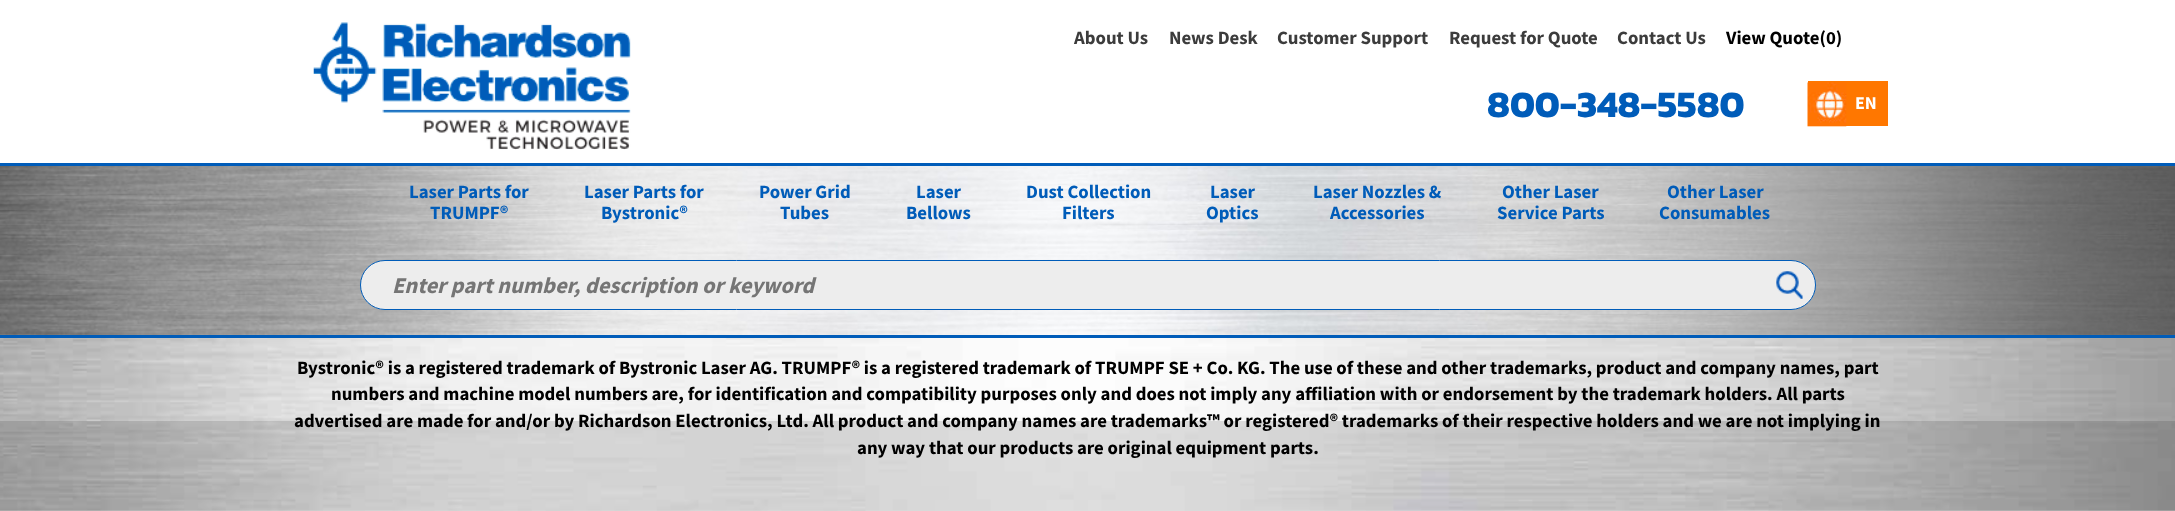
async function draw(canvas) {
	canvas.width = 2175;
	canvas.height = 511;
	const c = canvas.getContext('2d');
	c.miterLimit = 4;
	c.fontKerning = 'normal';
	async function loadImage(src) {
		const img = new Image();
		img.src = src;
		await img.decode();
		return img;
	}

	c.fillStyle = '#fff';
	c.fillRect(0, 0, 2175, 511);
	c.drawImage(await loadImage('img1.png'), 313, 22, 318, 128);
	c.font = 'bold 18.75px Source Sans Pro';
	c.fillStyle = '#3c3c3c';
	for (const [text, x, y] of [
		['About Us', 1074, 44],
		['News Desk', 1169, 44],
		['Customer Support', 1277, 44],
		['Request for Quote', 1449, 44],
		['Contact Us', 1617, 44],
	]) {
		c.fillText(text, x, y);
	}
	c.fillStyle = '#000';
	c.fillText('View Quote(0)', 1726, 44);
	c.font = 'bold 37.5px Kanit';
	c.fillStyle = '#005cb9';
	c.fillText('800-348-5580', 1487, 117);
	c.fillStyle = '#f70';
	c.fillRect(1808, 81, 80, 45);
	c.drawImage(await loadImage('img2.png'), 1807, 82, 40, 45);
	c.font = 'bold 18px Source Sans Pro';
	c.fillStyle = '#fff';
	c.fillText('EN', 1855, 109);
	c.drawImage(await loadImage('img5.png'), 0, 334, 2175, 177);
	c.drawImage(await loadImage('img3.png'), 0, 166, 2175, 169);
	c.fillStyle = '#005cb9';
	c.fillRect(0, 163, 2175, 3);
	c.fillRect(0, 335, 2175, 3);
	c.font = 'bold 18.75px Source Sans Pro';
	for (const [text, x, y] of [
		['Laser Parts for', 409, 198],
		['TRUMPF®', 430, 219],
		['Laser Parts for', 584, 198],
		['Bystronic®', 601, 219],
		['Power Grid', 759, 198],
		['Tubes', 780, 219],
		['Laser', 916, 198],
		['Bellows', 906, 219],
		['Dust Collection', 1026, 198],
		['Filters', 1062, 219],
		['Laser', 1210, 198],
		['Optics', 1206, 219],
		['Laser Nozzles &', 1313, 198],
		['Accessories', 1330, 219],
		['Other Laser', 1502, 198],
		['Service Parts', 1497, 219],
		['Other Laser', 1667, 198],
		['Consumables', 1659, 219],
	]) {
		c.fillText(text, x, y);
	}
	c.fillStyle = '#ededed';
	c.beginPath();
	c.roundRect(360.5, 260.5, 1455, 49, 24.5);
	c.fill();
	c.strokeStyle = '#005cb9';
	c.stroke();
	c.font = 'italic bold 22.5px Source Sans Pro';
	c.fillStyle = '#757575';
	c.fillText('Enter part number, description or keyword', 392, 293);
	c.drawImage(await loadImage('img4.png'), 1776, 271, 27, 28);
	c.font = 'bold 18.75px Source Sans Pro';
	c.fillStyle = '#000';
	for (const [text, x, y] of [
		['Bystronic® is a registered trademark of Bystronic Laser AG. TRUMPF® is a registered trademark of TRUMPF SE + Co. KG. The use of these and other trademarks, product and company names, part', 297, 374],
		['numbers and machine model numbers are, for identification and compatibility purposes only and does not imply any affiliation with or endorsement by the trademark holders. All parts', 331, 400],
		['advertised are made for and/or by Richardson Electronics, Ltd. All product and company names are trademarks™ or registered® trademarks of their respective holders and we are not implying in', 294, 427],
		['any way that our products are original equipment parts.', 857, 454],
	]) {
		c.fillText(text, x, y);
	}
	c.fillStyle = '#0000001f';
	c.fillRect(0, 421, 2175, 90);
}

draw(document.querySelector('canvas'));
